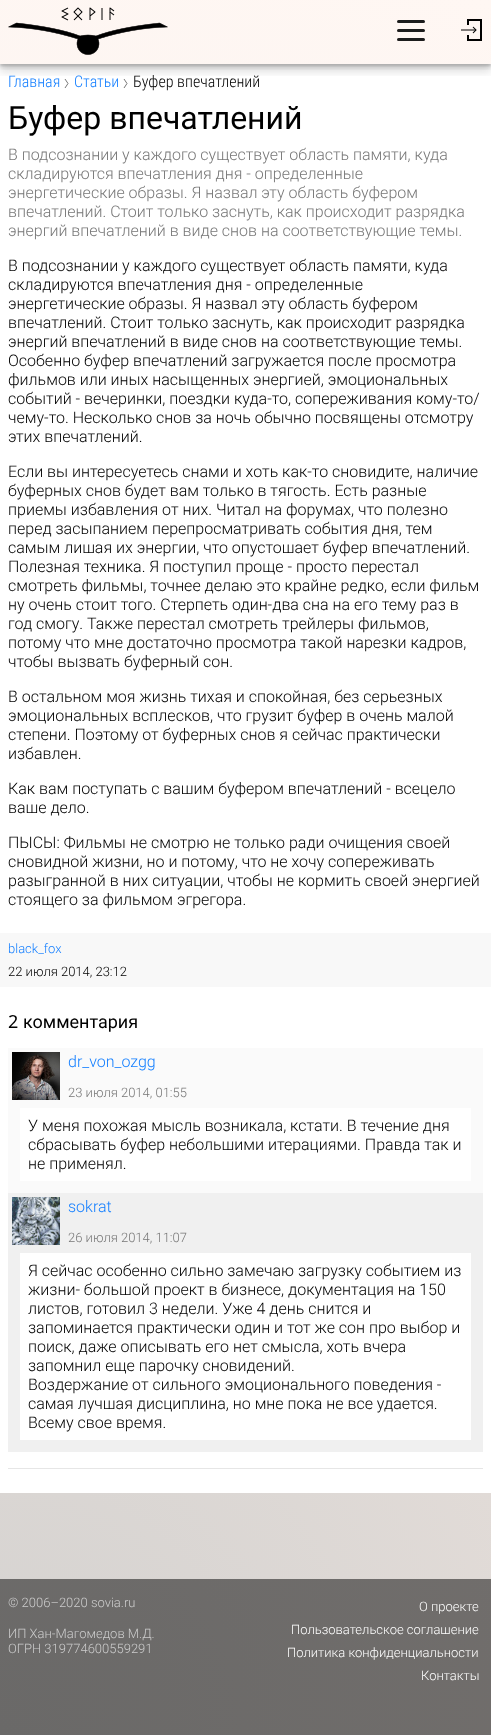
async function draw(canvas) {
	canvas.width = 491;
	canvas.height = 1735;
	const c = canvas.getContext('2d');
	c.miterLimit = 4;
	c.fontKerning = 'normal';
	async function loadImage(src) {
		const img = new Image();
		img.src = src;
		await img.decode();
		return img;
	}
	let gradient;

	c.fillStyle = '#fff';
	c.fillRect(0, 0, 491, 1735);
	gradient = c.createRadialGradient(0, 1735, 0, 0, 1735, 1803);
	gradient.addColorStop(0, '#d4d2d0');
	gradient.addColorStop(1, '#ffefe7');
	c.fillStyle = gradient;
	c.fillRect(0, 1493, 491, 86);
	gradient = c.createRadialGradient(0, 1735, 0, 0, 1735, 1803);
	gradient.addColorStop(0, '#eae9e8');
	gradient.addColorStop(1, '#fff7f3');
	c.fillStyle = gradient;
	c.fillRect(0, 0, 491, 64);
	gradient = c.createRadialGradient(0, 1735, 0, 0, 1735, 1803);
	gradient.addColorStop(0, '#6a6968');
	gradient.addColorStop(1, '#807874');
	c.fillStyle = gradient;
	c.fillRect(0, 1579, 491, 156);
	c.beginPath();
	c.moveTo(65, 79);
	c.lineTo(68, 83.5);
	c.lineTo(65, 88);
	c.strokeStyle = '#777';
	c.stroke();
	c.beginPath();
	c.moveTo(124, 79);
	c.lineTo(127, 83.5);
	c.lineTo(124, 88);
	c.stroke();
	c.save();
	c.beginPath();
	c.rect(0, 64, 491, 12);
	c.clip();
	c.fillStyle = '#0000001f';
	c.filter = 'blur(4px)';
	c.beginPath();
	c.rect(0, 8, 491, 64);
	c.fill();
	c.filter = 'none';
	c.restore();
	c.save();
	c.beginPath();
	c.rect(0, 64, 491, 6);
	c.clip();
	c.fillStyle = '#0000001f';
	c.filter = 'blur(2px)';
	c.beginPath();
	c.rect(0, 4, 491, 64);
	c.fill();
	c.filter = 'none';
	c.restore();
	c.save();
	c.beginPath();
	c.rect(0, 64, 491, 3);
	c.clip();
	c.fillStyle = '#0000001f';
	c.filter = 'blur(1px)';
	c.beginPath();
	c.rect(0, 2, 491, 64);
	c.fill();
	c.filter = 'none';
	c.restore();
	c.drawImage(await loadImage('img1.png'), 8, 7, 160, 48);
	c.fillStyle = '#1c1c1c';
	c.beginPath();
	c.roundRect(397, 20, 28, 3, 1.5);
	c.fill();
	c.beginPath();
	c.roundRect(397, 29, 28, 3, 1.5);
	c.fill();
	c.beginPath();
	c.roundRect(397, 38, 28, 3, 1.5);
	c.fill();
	c.drawImage(await loadImage('img2.png'), 461, 19, 21, 22);
	c.font = '300 16px Roboto Condensed';
	c.fillStyle = '#147fff';
	c.fillText('Главная', 8, 87);
	c.fillText('Статьи', 74, 87);
	c.fillStyle = '#000';
	c.fillText('Буфер впечатлений', 133, 87);
	c.font = '32px Roboto';
	c.fillText('Буфер впечатлений', 8, 129);
	c.font = '300 16px Roboto';
	c.fillStyle = '#777';
	for (const [text, x, y] of [
		['В подсознании у каждого существует область памяти, куда', 8, 160],
		['складируются впечатления дня - определенные', 8, 179],
		['энергетические образы. Я назвал эту область буфером', 8, 198],
		['впечатлений. Стоит только заснуть, как происходит разрядка', 8, 217],
		['энергий впечатлений в виде снов на соответствующие темы.', 8, 236],
	]) {
		c.fillText(text, x, y);
	}
	c.fillStyle = '#000';
	for (const [text, x, y] of [
		['В подсознании у каждого существует область памяти, куда', 8, 271],
		['складируются впечатления дня - определенные', 8, 290],
		['энергетические образы. Я назвал эту область буфером', 8, 309],
		['впечатлений. Стоит только заснуть, как происходит разрядка', 8, 328],
		['энергий впечатлений в виде снов на соответствующие темы.', 8, 347],
		['Особенно буфер впечатлений загружается после просмотра', 8, 366],
		['фильмов или иных насыщенных энергией, эмоциональных', 8, 385],
		['событий - вечеринки, поездки куда-то, сопереживания кому-то/', 8, 404],
		['чему-то. Несколько снов за ночь обычно посвящены отсмотру', 8, 423],
		['этих впечатлений.', 8, 442],
		['Если вы интересуетесь снами и хоть как-то сновидите, наличие', 8, 477],
		['буферных снов будет вам только в тягость. Есть разные', 8, 496],
		['приемы избавления от них. Читал на форумах, что полезно', 8, 515],
		['перед засыпанием перепросматривать события дня, тем', 8, 534],
		['самым лишая их энергии, что опустошает буфер впечатлений.', 8, 553],
		['Полезная техника. Я поступил проще - просто перестал', 8, 572],
		['смотреть фильмы, точнее делаю это крайне редко, если фильм', 8, 591],
		['ну очень стоит того. Стерпеть один-два сна на его тему раз в', 8, 610],
		['год смогу. Также перестал смотреть трейлеры фильмов,', 8, 629],
		['потому что мне достаточно просмотра такой нарезки кадров,', 8, 648],
		['чтобы вызвать буферный сон.', 8, 667],
		['В остальном моя жизнь тихая и спокойная, без серьезных', 8, 702],
		['эмоциональных всплесков, что грузит буфер в очень малой', 8, 721],
		['степени. Поэтому от буферных снов я сейчас практически', 8, 740],
		['избавлен.', 8, 759],
		['Как вам поступать с вашим буфером впечатлений - всецело', 8, 794],
		['ваше дело.', 8, 813],
		['ПЫСЫ: Фильмы не смотрю не только ради очищения своей', 8, 848],
		['сновидной жизни, но и потому, что не хочу сопереживать', 8, 867],
		['разыгранной в них ситуации, чтобы не кормить своей энергией', 8, 886],
		['стоящего за фильмом эгрегора.', 8, 905],
	]) {
		c.fillText(text, x, y);
	}
	c.fillStyle = '#f8f8f8';
	c.fillRect(0, 933, 491, 54);
	c.font = '300 13px Roboto';
	c.fillStyle = '#147fff';
	c.fillText('black_fox', 8, 953);
	c.fillStyle = '#000';
	c.fillText('22 июля 2014, 23:12', 8, 976);
	c.fillStyle = '#e6e6e6';
	c.fillRect(8, 1468, 475, 1);
	c.font = '18px Noto Sans';
	c.fillStyle = '#000';
	c.fillText('2', 8, 1028);
	c.font = '18px Roboto';
	c.fillText('комментария', 23, 1028);
	c.fillStyle = '#fafafa';
	c.fillRect(8, 1048, 475, 145);
	c.drawImage(await loadImage('img3.png'), 12, 1052, 48, 48);
	c.font = '300 16px Roboto';
	c.fillStyle = '#147fff';
	c.fillText('dr_von_ozgg', 68, 1067);
	c.font = '300 13px Roboto';
	c.fillStyle = '#777';
	c.fillText('23 июля 2014, 01:55', 68, 1097);
	c.fillStyle = '#fff';
	c.fillRect(20, 1108, 451, 73);
	c.font = '300 16px Roboto';
	c.fillStyle = '#000';
	for (const [text, x, y] of [
		['У меня похожая мысль возникала, кстати. В течение дня', 28, 1131],
		['сбрасывать буфер небольшими итерациями. Правда так и', 28, 1150],
		['не применял.', 28, 1169],
	]) {
		c.fillText(text, x, y);
	}
	c.fillStyle = '#f0f0f0';
	c.fillRect(8, 1193, 475, 259);
	c.drawImage(await loadImage('img4.png'), 12, 1197, 48, 48);
	c.fillStyle = '#147fff';
	c.fillText('sokrat', 68, 1212);
	c.font = '300 13px Roboto';
	c.fillStyle = '#777';
	c.fillText('26 июля 2014, 11:07', 68, 1242);
	c.fillStyle = '#fff';
	c.fillRect(20, 1253, 451, 187);
	c.font = '300 16px Roboto';
	c.fillStyle = '#000';
	for (const [text, x, y] of [
		['Я сейчас особенно сильно замечаю загрузку событием из', 28, 1276],
		['жизни- большой проект в бизнесе, документация на 150', 28, 1295],
		['листов, готовил 3 недели. Уже 4 день снится и', 28, 1314],
		['запоминается практически один и тот же сон про выбор и', 28, 1333],
		['поиск, даже описывать его нет смысла, хоть вчера', 28, 1352],
		['запомнил еще парочку сновидений.', 28, 1371],
		['Воздержание от сильного эмоционального поведения -', 28, 1390],
		['самая лучшая дисциплина, но мне пока не все удается.', 28, 1409],
		['Всему свое время.', 28, 1428],
	]) {
		c.fillText(text, x, y);
	}
	c.font = '300 13px Roboto';
	c.fillStyle = '#ccc';
	for (const [text, x, y] of [
		['© 2006–2020 sovia.ru', 8, 1607],
		['ИП Хан-Магомедов М.Д.', 8, 1638],
		['ОГРН 319774600559291', 8, 1653],
	]) {
		c.fillText(text, x, y);
	}
	c.fillStyle = '#fff';
	for (const [text, x, y] of [
		['О проекте', 419, 1611],
		['Пользовательское соглашение', 291, 1634],
		['Политика конфиденциальности', 287, 1657],
		['Контакты', 421, 1680],
	]) {
		c.fillText(text, x, y);
	}
}

draw(document.querySelector('canvas'));
